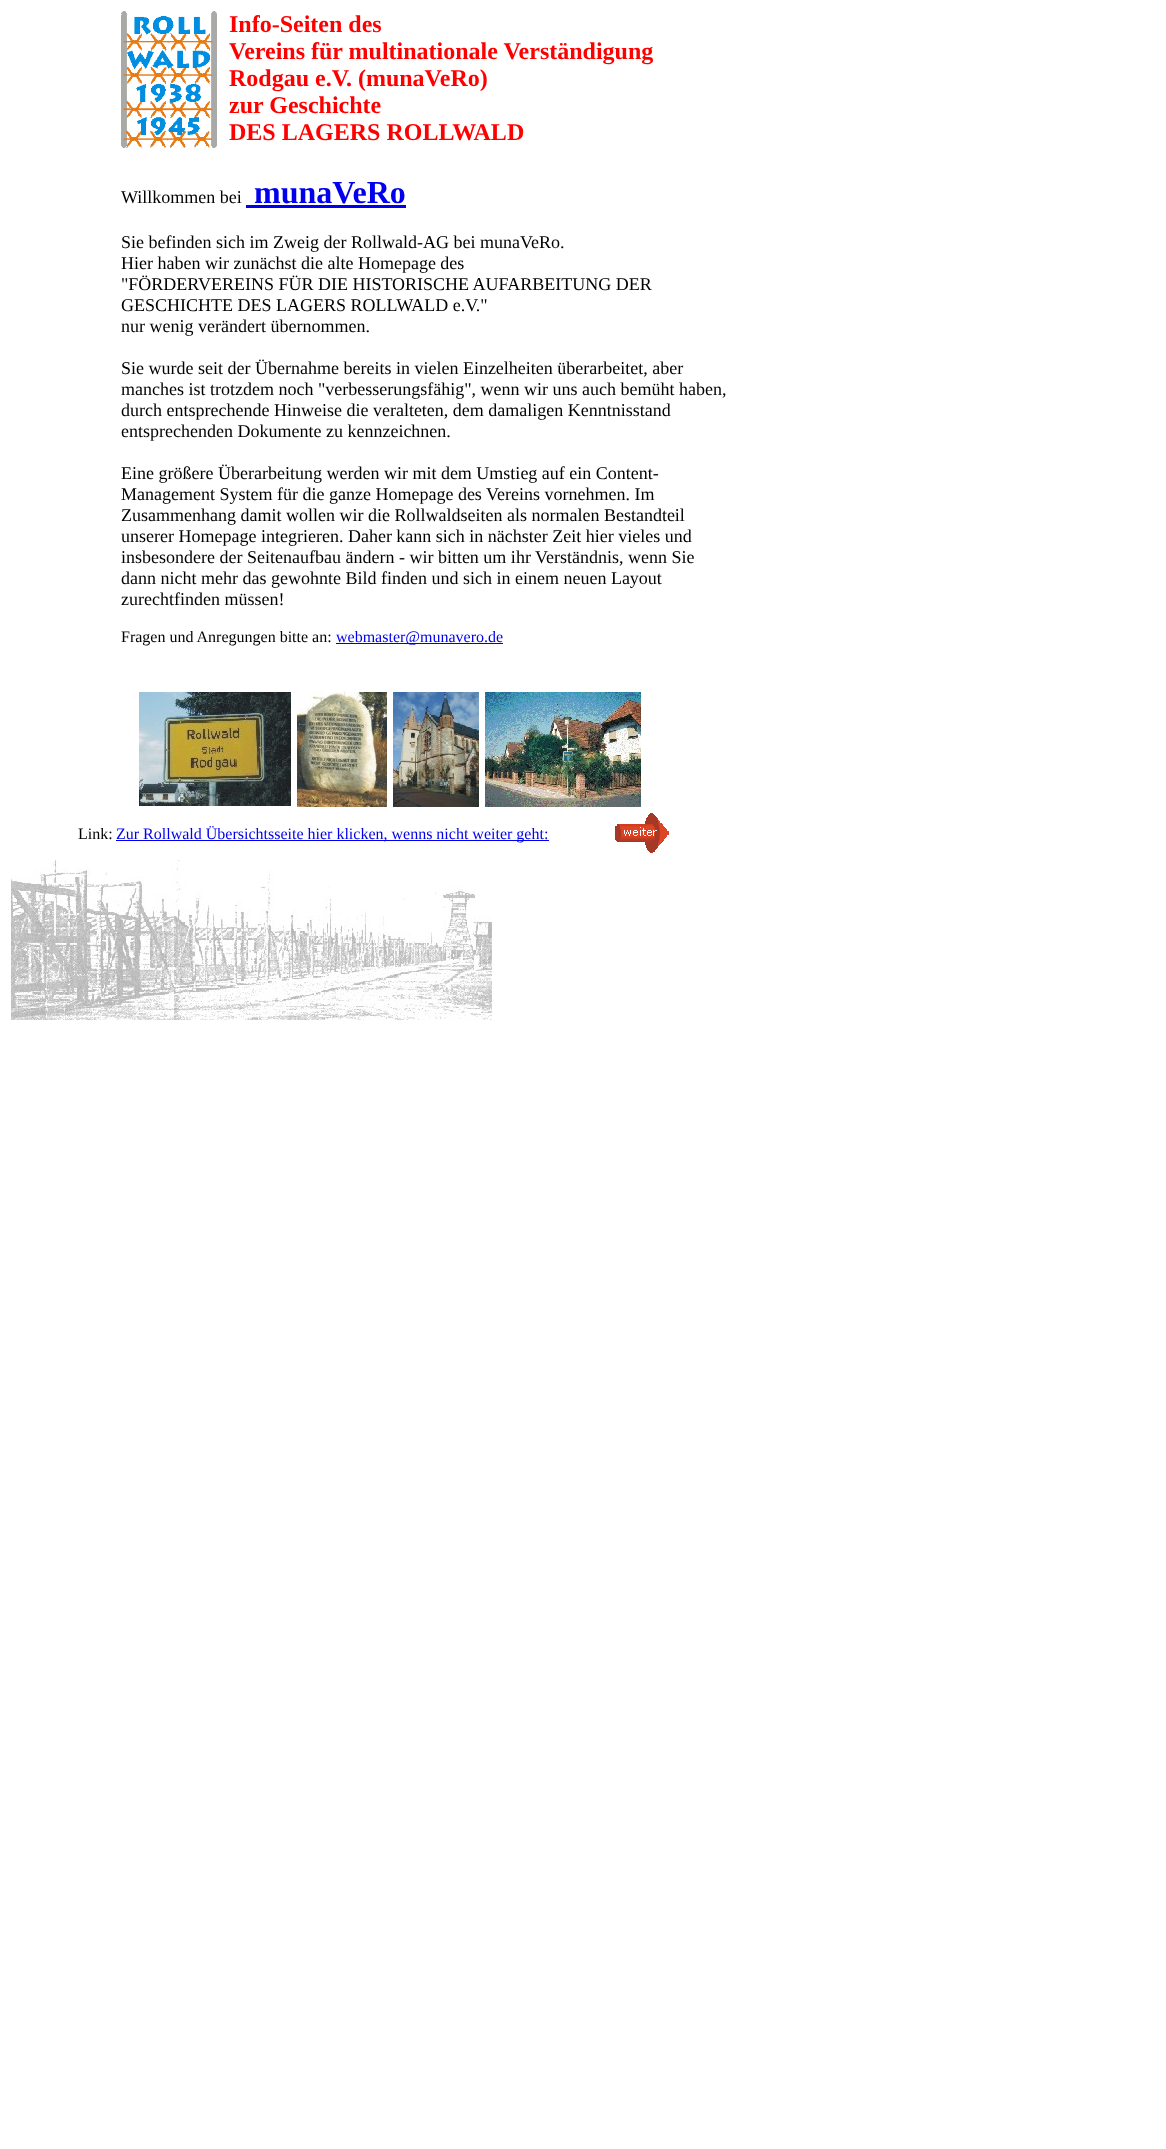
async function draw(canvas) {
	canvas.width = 1166;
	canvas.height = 2149;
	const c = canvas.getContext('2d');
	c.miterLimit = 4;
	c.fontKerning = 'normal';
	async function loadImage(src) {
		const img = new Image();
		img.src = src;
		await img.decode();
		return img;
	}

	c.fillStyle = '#fff';
	c.fillRect(0, 0, 1166, 2149);
	c.drawImage(await loadImage('img1.png'), 121, 11, 96, 137);
	c.font = 'bold 24px Liberation Serif';
	c.fillStyle = '#f00';
	for (const [text, x, y] of [
		['Info-Seiten des', 229, 32],
		['Vereins für multinationale Verständigung', 229, 59],
		['Rodgau e.V. (munaVeRo)', 229, 86],
		['zur Geschichte', 229, 113],
		['DES LAGERS ROLLWALD', 229, 140],
	]) {
		c.fillText(text, x, y);
	}
	c.font = '18px Liberation Serif';
	c.fillStyle = '#000';
	c.fillText('Willkommen bei', 121, 203);
	c.fillStyle = '#00e';
	c.fillRect(246, 205, 160, 3);
	c.font = 'bold 32px Liberation Serif';
	c.fillText('munaVeRo', 254, 203);
	c.font = '18px Liberation Serif';
	c.fillStyle = '#000';
	for (const [text, x, y] of [
		['Sie befinden sich im Zweig der Rollwald-AG bei munaVeRo.', 121, 248],
		['Hier haben wir zunächst die alte Homepage des', 121, 269],
		['"FÖRDERVEREINS FÜR DIE HISTORISCHE AUFARBEITUNG DER', 121, 290],
		['GESCHICHTE DES LAGERS ROLLWALD e.V."', 121, 311],
		['nur wenig verändert übernommen.', 121, 332],
		['Sie wurde seit der Übernahme bereits in vielen Einzelheiten überarbeitet, aber', 121, 374],
		['manches ist trotzdem noch "verbesserungsfähig", wenn wir uns auch bemüht haben,', 121, 395],
		['durch entsprechende Hinweise die veralteten, dem damaligen Kenntnisstand', 121, 416],
		['entsprechenden Dokumente zu kennzeichnen.', 121, 437],
		['Eine größere Überarbeitung werden wir mit dem Umstieg auf ein Content-', 121, 479],
		['Management System für die ganze Homepage des Vereins vornehmen. Im', 121, 500],
		['Zusammenhang damit wollen wir die Rollwaldseiten als normalen Bestandteil', 121, 521],
		['unserer Homepage integrieren. Daher kann sich in nächster Zeit hier vieles und', 121, 542],
		['insbesondere der Seitenaufbau ändern - wir bitten um ihr Verständnis, wenn Sie', 121, 563],
		['dann nicht mehr das gewohnte Bild finden und sich in einem neuen Layout', 121, 584],
		['zurechtfinden müssen!', 121, 605],
	]) {
		c.fillText(text, x, y);
	}
	c.font = '16px Liberation Serif';
	c.fillText('Fragen und Anregungen bitte an:', 121, 642);
	c.fillStyle = '#00e';
	c.fillRect(336, 643, 167, 1);
	c.fillText('webmaster@munavero.de', 336, 642);
	c.drawImage(await loadImage('img2.png'), 139, 692, 152, 114);
	c.drawImage(await loadImage('img3.png'), 297, 692, 90, 115);
	c.drawImage(await loadImage('img4.png'), 393, 692, 86, 115);
	c.drawImage(await loadImage('img5.png'), 485, 692, 156, 115);
	c.fillStyle = '#000';
	c.fillText('Link:', 78, 839);
	c.fillStyle = '#00e';
	c.fillRect(116, 840, 433, 1);
	c.fillText('Zur Rollwald Übersichtsseite hier klicken, wenns nicht weiter geht:', 116, 839);
	c.drawImage(await loadImage('img6.png'), 615, 813, 54, 40);
	c.drawImage(await loadImage('img7.png'), 11, 860, 481, 160);
}

draw(document.querySelector('canvas'));
